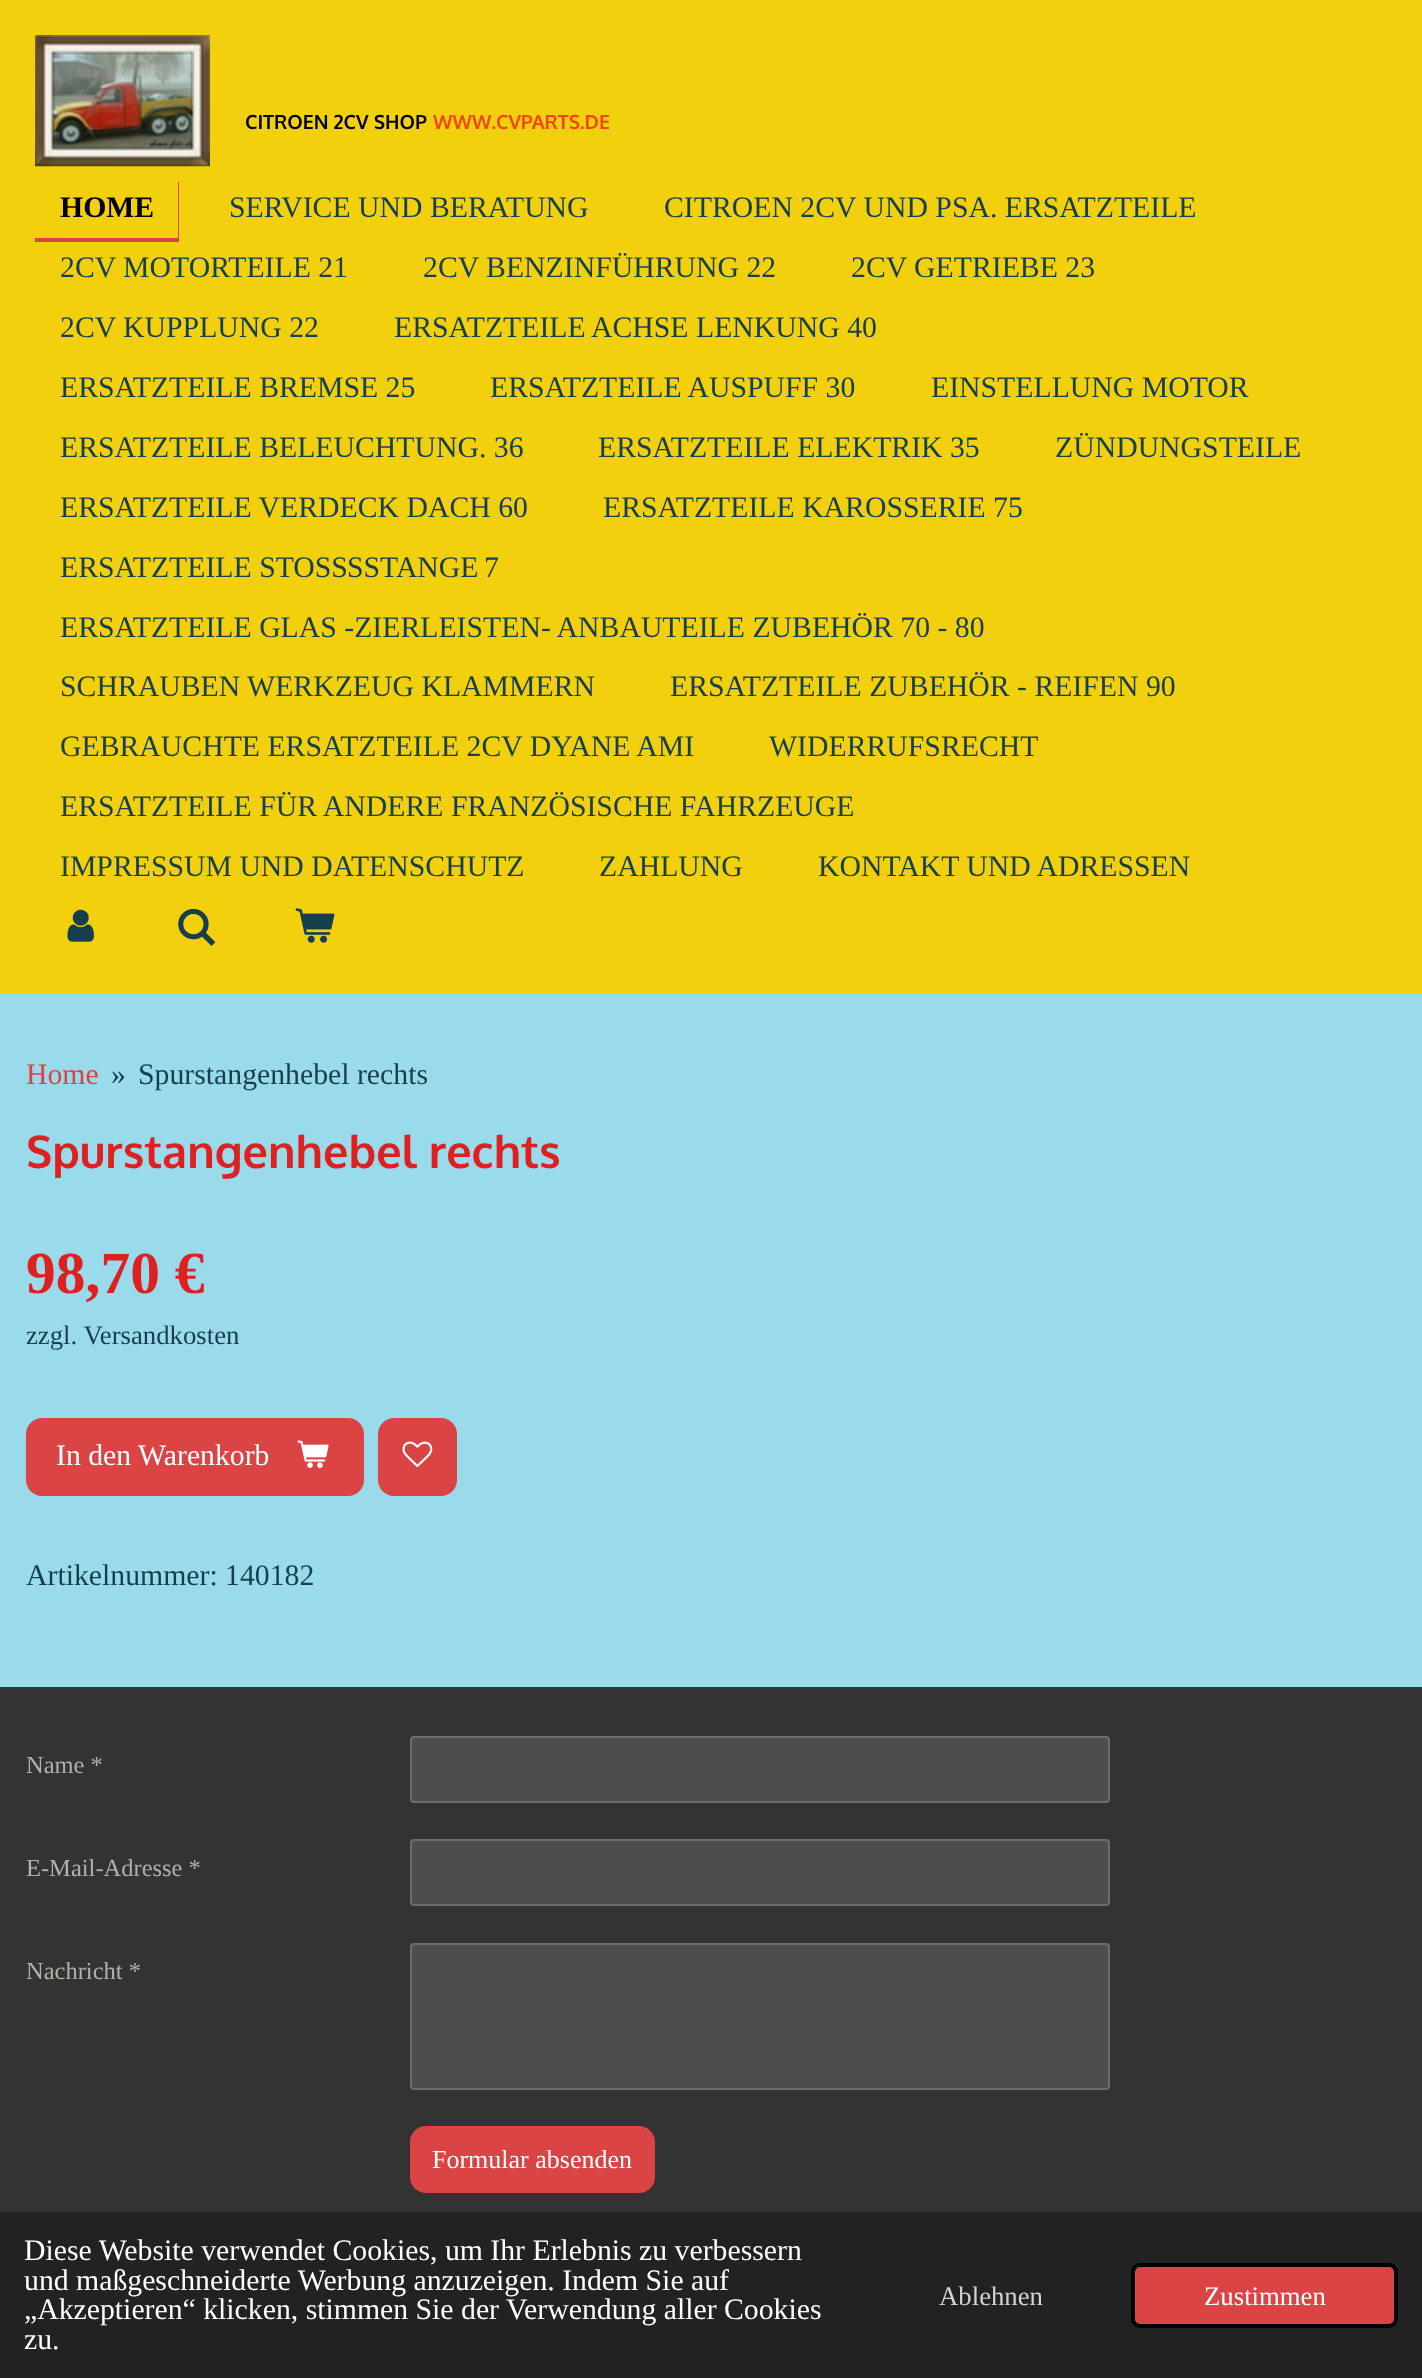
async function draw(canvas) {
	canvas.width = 1422;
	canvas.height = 2378;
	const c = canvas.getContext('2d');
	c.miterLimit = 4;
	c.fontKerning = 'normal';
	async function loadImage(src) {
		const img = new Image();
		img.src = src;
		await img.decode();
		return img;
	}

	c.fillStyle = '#f2d00d';
	c.fillRect(0, 0, 1422, 2378);
	c.drawImage(await loadImage('img1.png'), 35, 35, 175, 132);
	c.font = 'bold 19.5px Oxygen';
	c.fillStyle = '#000';
	c.fillText('CITROEN 2CV SHOP', 245, 129);
	c.fillStyle = '#f34411';
	c.fillText('WWW.CVPARTS.DE', 433, 129);
	c.fillStyle = '#da4444';
	c.beginPath();
	c.moveTo(35, 238);
	c.lineTo(35, 242);
	c.lineTo(179, 242);
	c.lineTo(179, 182);
	c.lineTo(178, 182);
	c.lineTo(178, 238);
	c.closePath();
	c.fill();
	c.font = 'bold 29.75px Liberation Serif';
	c.fillStyle = '#000';
	c.fillText('HOME', 60, 217);
	c.font = '29.75px Liberation Serif';
	c.fillStyle = '#173e4c';
	for (const [text, x, y] of [
		['SERVICE UND BERATUNG', 229, 217],
		['CITROEN 2CV UND PSA. ERSATZTEILE', 664, 217],
		['2CV MOTORTEILE 21', 60, 277],
		['2CV BENZINFÜHRUNG 22', 423, 277],
		['2CV GETRIEBE 23', 851, 277],
		['2CV KUPPLUNG 22', 60, 337],
		['ERSATZTEILE', 394, 337],
		['ACHSE LENKUNG 40', 591, 337],
		['ERSATZTEILE BREMSE 25', 60, 397],
		['ERSATZTEILE AUSPUFF 30', 490, 397],
		['EINSTELLUNG MOTOR', 931, 397],
		['ERSATZTEILE BELEUCHTUNG. 36', 60, 457],
		['ERSATZTEILE ELEKTRIK 35', 598, 457],
		['ZÜNDUNGSTEILE', 1055, 457],
		['ERSATZTEILE VERDECK DACH 60', 60, 517],
		['ERSATZTEILE KAROSSERIE 75', 603, 517],
		['ERSATZTEILE STOSS', 60, 577],
	]) {
		c.fillText(text, x, y);
	}
	c.wordSpacing = '-2px';
	c.fillText('SSTANGE 7', 347, 577);
	c.wordSpacing = '0px';
	for (const [text, x, y] of [
		['ERSATZTEILE GLAS -ZIERLEISTEN- ANBAUTEILE ZUBEHÖR 70 - 80', 60, 637],
		['SCHRAUBEN WERKZEUG KLAMMERN', 60, 696],
		['ERSATZTEILE ZUBEHÖR - REIFEN 90', 670, 696],
		['GEBRAUCHTE ERSATZTEILE 2CV DYANE AMI', 60, 756],
		['WIDERRUFSRECHT', 769, 756],
		['ERSATZTEILE FÜR ANDERE FRANZÖSISCHE FAHRZEUGE', 60, 816],
		['IMPRESSUM UND DATENSCHUTZ', 60, 876],
		['ZAHLUNG', 599, 876],
		['KONTAKT UND ADRESSEN', 818, 876],
	]) {
		c.fillText(text, x, y);
	}
	c.drawImage(await loadImage('img2.png'), 67, 909, 27, 33);
	c.drawImage(await loadImage('img3.png'), 178, 908, 38, 38);
	c.drawImage(await loadImage('img4.png'), 295, 908, 40, 35);
	c.fillStyle = '#99daeb';
	c.fillRect(0, 994, 1422, 693);
	c.fillStyle = '#da4444';
	c.fillText('Home', 26, 1084);
	c.fillStyle = '#173e4c';
	c.fillText('»', 111, 1084);
	c.fillText('Spurstangenhebel rechts', 138, 1084);
	c.font = 'bold 45px Oxygen';
	c.fillStyle = '#df2020';
	c.fillText('Spurstangenhebel rechts', 26, 1168);
	c.font = 'bold 59.5px Liberation Serif';
	c.fillText('98,70 €', 26, 1293);
	c.font = '26.75px Liberation Serif';
	c.fillStyle = '#173e4c';
	c.fillText('zzgl. Versandkosten', 26, 1344);
	c.fillStyle = '#da4444';
	c.beginPath();
	c.roundRect(26, 1418, 338, 78, 16);
	c.fill();
	c.font = '29.75px Liberation Serif';
	c.fillStyle = '#fff';
	c.fillText('In den Warenkorb', 56, 1465);
	c.drawImage(await loadImage('img5.png'), 297, 1440, 32, 28);
	c.fillStyle = '#da4444';
	c.beginPath();
	c.roundRect(378, 1418, 79, 78, 16);
	c.fill();
	c.drawImage(await loadImage('img6.png'), 402, 1441, 31, 27);
	c.fillStyle = '#173e4c';
	c.fillText('Artikelnummer: 140182', 26, 1585);
	c.fillStyle = '#333';
	c.fillRect(0, 1687, 1422, 525);
	c.font = '24.5px Liberation Serif';
	c.fillStyle = '#b1b0ac';
	c.fillText('Name *', 26, 1773);
	c.fillStyle = '#4d4d4d';
	c.beginPath();
	c.roundRect(410, 1736, 700, 67, 4);
	c.fill();
	c.beginPath();
	c.roundRect(411, 1737, 698, 65, 3);
	c.strokeStyle = '#8c8c8c80';
	c.lineWidth = 2;
	c.stroke();
	c.fillStyle = '#b1b0ac';
	c.fillText('E-Mail-Adresse *', 26, 1876);
	c.fillStyle = '#4d4d4d';
	c.beginPath();
	c.roundRect(410, 1839, 700, 67, 4);
	c.fill();
	c.beginPath();
	c.roundRect(411, 1840, 698, 65, 3);
	c.stroke();
	c.fillStyle = '#b1b0ac';
	c.fillText('Nachricht *', 26, 1979);
	c.fillStyle = '#4d4d4d';
	c.beginPath();
	c.roundRect(410, 1943, 700, 147, 4);
	c.fill();
	c.beginPath();
	c.roundRect(411, 1944, 698, 145, 3);
	c.stroke();
	c.fillStyle = '#da4444';
	c.beginPath();
	c.roundRect(410, 2126, 245, 67, 16);
	c.fill();
	c.font = '26px Liberation Serif';
	c.fillStyle = '#fff';
	c.fillText('Formular absenden', 432, 2168);
	c.fillStyle = '#222';
	c.fillRect(0, 2212, 1422, 166);
	c.font = '29.75px Liberation Serif';
	c.fillStyle = '#fff';
	for (const [text, x, y] of [
		['Diese Website verwendet Cookies, um Ihr Erlebnis zu verbessern', 24, 2260],
		['und maßgeschneiderte Werbung anzuzeigen. Indem Sie auf', 24, 2290],
		['„Akzeptieren“ klicken, stimmen Sie der Verwendung aller Cookies', 24, 2319],
		['zu.', 24, 2349],
	]) {
		c.fillText(text, x, y);
	}
	c.font = '26.75px Liberation Serif';
	c.fillStyle = '#d3d3d3';
	c.fillText('Ablehnen', 939, 2305);
	c.fillStyle = '#da4444';
	c.beginPath();
	c.roundRect(1133, 2265, 263, 61, 7);
	c.fill();
	c.strokeStyle = '#000';
	c.lineWidth = 4;
	c.stroke();
	c.fillStyle = '#fff';
	c.fillText('Zustimmen', 1204, 2305);
}

draw(document.querySelector('canvas'));
